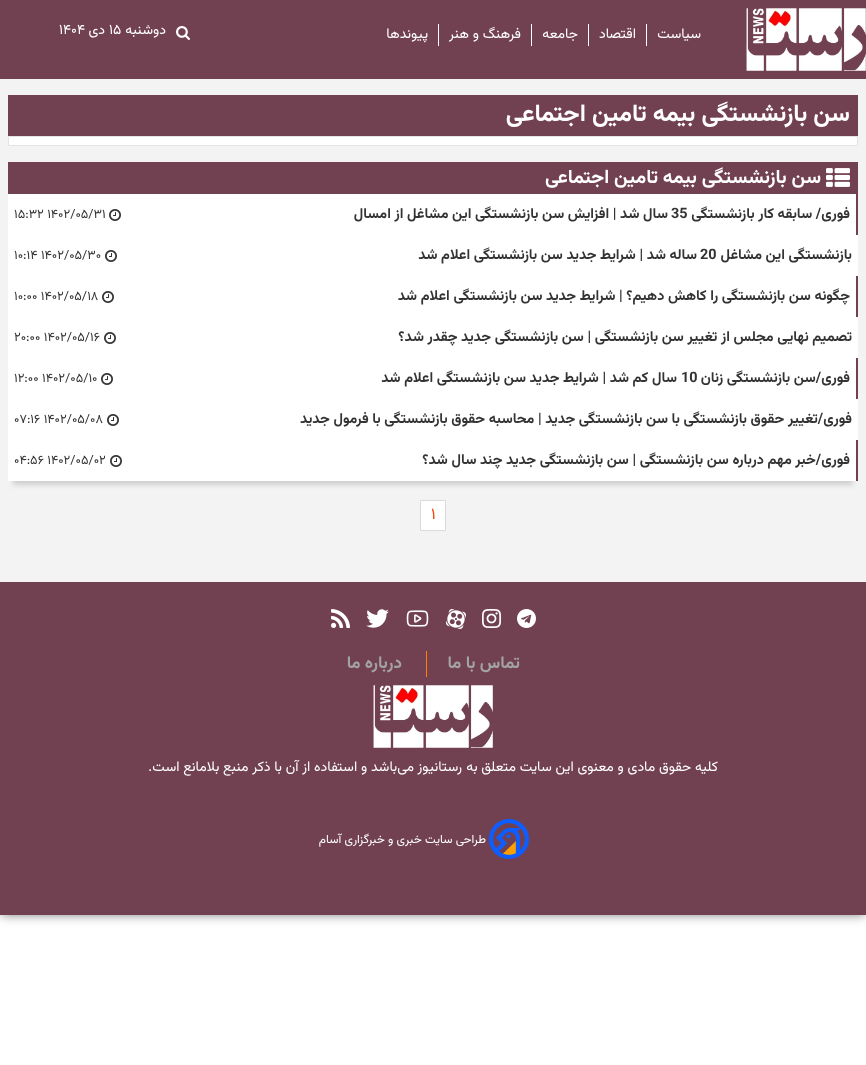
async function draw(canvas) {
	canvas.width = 866;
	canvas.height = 1065;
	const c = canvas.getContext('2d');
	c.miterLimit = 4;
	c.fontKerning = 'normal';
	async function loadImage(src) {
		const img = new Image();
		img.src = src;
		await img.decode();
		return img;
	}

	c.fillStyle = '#fff';
	c.fillRect(0, 0, 866, 1065);
	c.fillStyle = '#6b6b6b';
	c.filter = 'blur(6px)';
	c.beginPath();
	c.rect(1, 1, 864, 913);
	c.fill();
	c.filter = 'none';
	c.fillStyle = '#724151';
	c.fillRect(0, 0, 866, 79);
	c.drawImage(await loadImage('img1.png'), 746, 8, 120, 63);
	c.fillStyle = '#fff';
	c.fillRect(646, 24, 1, 22);
	c.direction = 'rtl';
	c.font = '14px Vazirmatn';
	c.fillText('سیاست', 701, 38);
	c.fillRect(588, 24, 1, 22);
	c.fillText('اقتصاد', 636, 38);
	c.fillRect(531, 24, 1, 22);
	c.fillText('جامعه', 578, 38);
	c.fillRect(438, 24, 1, 22);
	c.fillText('فرهنگ و هنر', 521, 38);
	c.fillText('پیوند‌ها', 428, 38);
	c.drawImage(await loadImage('img2.png'), 176, 26, 14, 14);
	c.fillText('دوشنبه', 166, 34);
	c.direction = 'ltr';
	c.fillText('۱۵', 109, 34);
	c.direction = 'rtl';
	c.fillText('دی', 105, 34);
	c.direction = 'ltr';
	c.fillText('۱۴۰۴', 59, 34);
	c.fillStyle = '#f3f3f3';
	c.fillRect(0, 79, 866, 503);
	c.fillStyle = '#724151';
	c.fillRect(8, 95, 850, 41);
	c.direction = 'rtl';
	c.font = 'bold 24px Vazirmatn';
	c.fillStyle = '#fff';
	c.fillText('سن بازنشستگی بیمه تامین اجتماعی', 850, 121);
	c.beginPath();
	c.rect(8.5, 136.5, 849, 9);
	c.fill();
	c.strokeStyle = '#e3e3e3';
	c.stroke();
	c.fillStyle = '#cfcfcf';
	c.filter = 'blur(2.5px)';
	c.beginPath();
	c.rect(13, 176, 840, 309);
	c.fill();
	c.filter = 'none';
	c.fillStyle = '#fff';
	c.fillRect(8, 194, 850, 287);
	c.fillStyle = '#724151';
	c.fillRect(8, 162, 850, 32);
	c.drawImage(await loadImage('img3.png'), 826, 168, 24, 19);
	c.font = 'bold 19.25px Vazirmatn';
	c.fillStyle = '#fff';
	c.fillText('سن بازنشستگی بیمه تامین اجتماعی', 821, 183);
	c.fillStyle = '#724151';
	c.fillRect(856, 194, 2, 41);
	c.font = 'bold 14.4px Vazirmatn';
	c.fillStyle = '#333';
	c.fillText('فوری/ سابقه کار بازنشستگی', 850, 218);
	c.direction = 'ltr';
	c.fillText('35', 671, 218);
	c.direction = 'rtl';
	c.fillText('سال شد | افزایش سن بازنشستگی این مشاغل از امسال', 668, 218);
	c.drawImage(await loadImage('img4.png'), 109, 209, 12, 12);
	c.direction = 'ltr';
	c.font = '12.75px Vazirmatn';
	c.fillText('۱۵:۳۲ ۱۴۰۲/۰۵/۳۱', 14, 218);
	c.direction = 'rtl';
	c.font = 'bold 14.4px Vazirmatn';
	c.fillText('بازنشستگی این مشاغل', 852, 259);
	c.direction = 'ltr';
	c.fillText('20', 700, 259);
	c.direction = 'rtl';
	c.fillText('ساله شد | شرایط جدید سن بازنشستگی اعلام شد', 697, 259);
	c.drawImage(await loadImage('img4.png'), 105, 250, 12, 12);
	c.direction = 'ltr';
	c.font = '12.75px Vazirmatn';
	c.fillText('۱۰:۱۴ ۱۴۰۲/۰۵/۳۰', 14, 259);
	c.fillStyle = '#724151';
	c.fillRect(856, 276, 2, 41);
	c.direction = 'rtl';
	c.font = 'bold 14.4px Vazirmatn';
	c.fillStyle = '#333';
	c.fillText('چگونه سن بازنشستگی را کاهش دهیم؟ | شرایط جدید سن بازنشستگی اعلام شد', 850, 300);
	c.drawImage(await loadImage('img4.png'), 102, 291, 12, 12);
	c.direction = 'ltr';
	c.font = '12.75px Vazirmatn';
	c.fillText('۱۰:۰۰ ۱۴۰۲/۰۵/۱۸', 14, 300);
	c.direction = 'rtl';
	c.font = 'bold 14.4px Vazirmatn';
	c.fillText('تصمیم نهایی مجلس از تغییر سن بازنشستگی | سن بازنشستگی جدید چقدر شد؟', 852, 341);
	c.drawImage(await loadImage('img4.png'), 104, 332, 12, 12);
	c.direction = 'ltr';
	c.font = '12.75px Vazirmatn';
	c.fillText('۲۰:۰۰ ۱۴۰۲/۰۵/۱۶', 14, 341);
	c.fillStyle = '#724151';
	c.fillRect(856, 358, 2, 41);
	c.direction = 'rtl';
	c.font = 'bold 14.4px Vazirmatn';
	c.fillStyle = '#333';
	c.fillText('فوری/سن بازنشستگی زنان', 850, 382);
	c.direction = 'ltr';
	c.fillText('10', 681, 382);
	c.direction = 'rtl';
	c.fillText('سال کم شد | شرایط جدید سن بازنشستگی اعلام شد', 677, 382);
	c.drawImage(await loadImage('img4.png'), 101, 373, 12, 12);
	c.direction = 'ltr';
	c.font = '12.75px Vazirmatn';
	c.fillText('۱۲:۰۰ ۱۴۰۲/۰۵/۱۰', 14, 382);
	c.direction = 'rtl';
	c.font = 'bold 14.4px Vazirmatn';
	c.fillText('فوری/تغییر حقوق بازنشستگی با سن بازنشستگی جدید | محاسبه حقوق بازنشستگی با فرمول جدید', 852, 423);
	c.drawImage(await loadImage('img4.png'), 107, 414, 12, 12);
	c.direction = 'ltr';
	c.font = '12.75px Vazirmatn';
	c.fillText('۰۷:۱۶ ۱۴۰۲/۰۵/۰۸', 14, 423);
	c.fillStyle = '#724151';
	c.fillRect(856, 440, 2, 41);
	c.direction = 'rtl';
	c.font = 'bold 14.4px Vazirmatn';
	c.fillStyle = '#333';
	c.fillText('فوری/خبر مهم درباره سن بازنشستگی | سن بازنشستگی جدید چند سال شد؟', 850, 464);
	c.drawImage(await loadImage('img4.png'), 110, 455, 12, 12);
	c.direction = 'ltr';
	c.font = '12.75px Vazirmatn';
	c.fillText('۰۴:۵۶ ۱۴۰۲/۰۵/۰۲', 14, 464);
	c.fillStyle = '#fff';
	c.beginPath();
	c.rect(420.5, 500.5, 25, 30);
	c.fill();
	c.strokeStyle = '#dbdbdb';
	c.stroke();
	c.font = '16px Vazirmatn';
	c.fillStyle = '#f94100';
	c.fillText('۱', 431, 519);
	c.fillStyle = '#724151';
	c.fillRect(0, 582, 866, 333);
	c.drawImage(await loadImage('img5.png'), 517, 609, 19, 19);
	c.drawImage(await loadImage('img6.png'), 482, 609, 19, 19);
	c.drawImage(await loadImage('img7.png'), 446, 609, 20, 20);
	c.drawImage(await loadImage('img8.png'), 406, 610, 23, 17);
	c.drawImage(await loadImage('img9.png'), 366, 609, 23, 19);
	c.drawImage(await loadImage('img10.png'), 331, 609, 19, 19);
	c.fillStyle = '#ff8000';
	c.fillRect(426, 651, 1, 26);
	c.direction = 'rtl';
	c.font = 'bold 17px Vazirmatn';
	c.fillStyle = '#a3a3a2';
	c.fillText('تماس با ما', 520, 668);
	c.fillText('درباره ما', 402, 668);
	c.drawImage(await loadImage('img11.png'), 373, 685, 120, 63);
	c.font = '14px Vazirmatn';
	c.fillStyle = '#fff';
	for (const [text, x, y] of [
		['کلیه حقوق مادی و معنوی این سایت متعلق به', 718, 771],
		['رستانیوز', 462, 771],
		['می‌باشد و استفاده از آن با ذکر منبع بلامانع است.', 414, 771],
	]) {
		c.fillText(text, x, y);
	}
	c.drawImage(await loadImage('img12.png'), 489, 819, 40, 40);
	c.font = '12px Vazirmatn';
	c.fillText('طراحی سایت خبری و خبرگزاری آسام', 486, 843);
}

draw(document.querySelector('canvas'));
